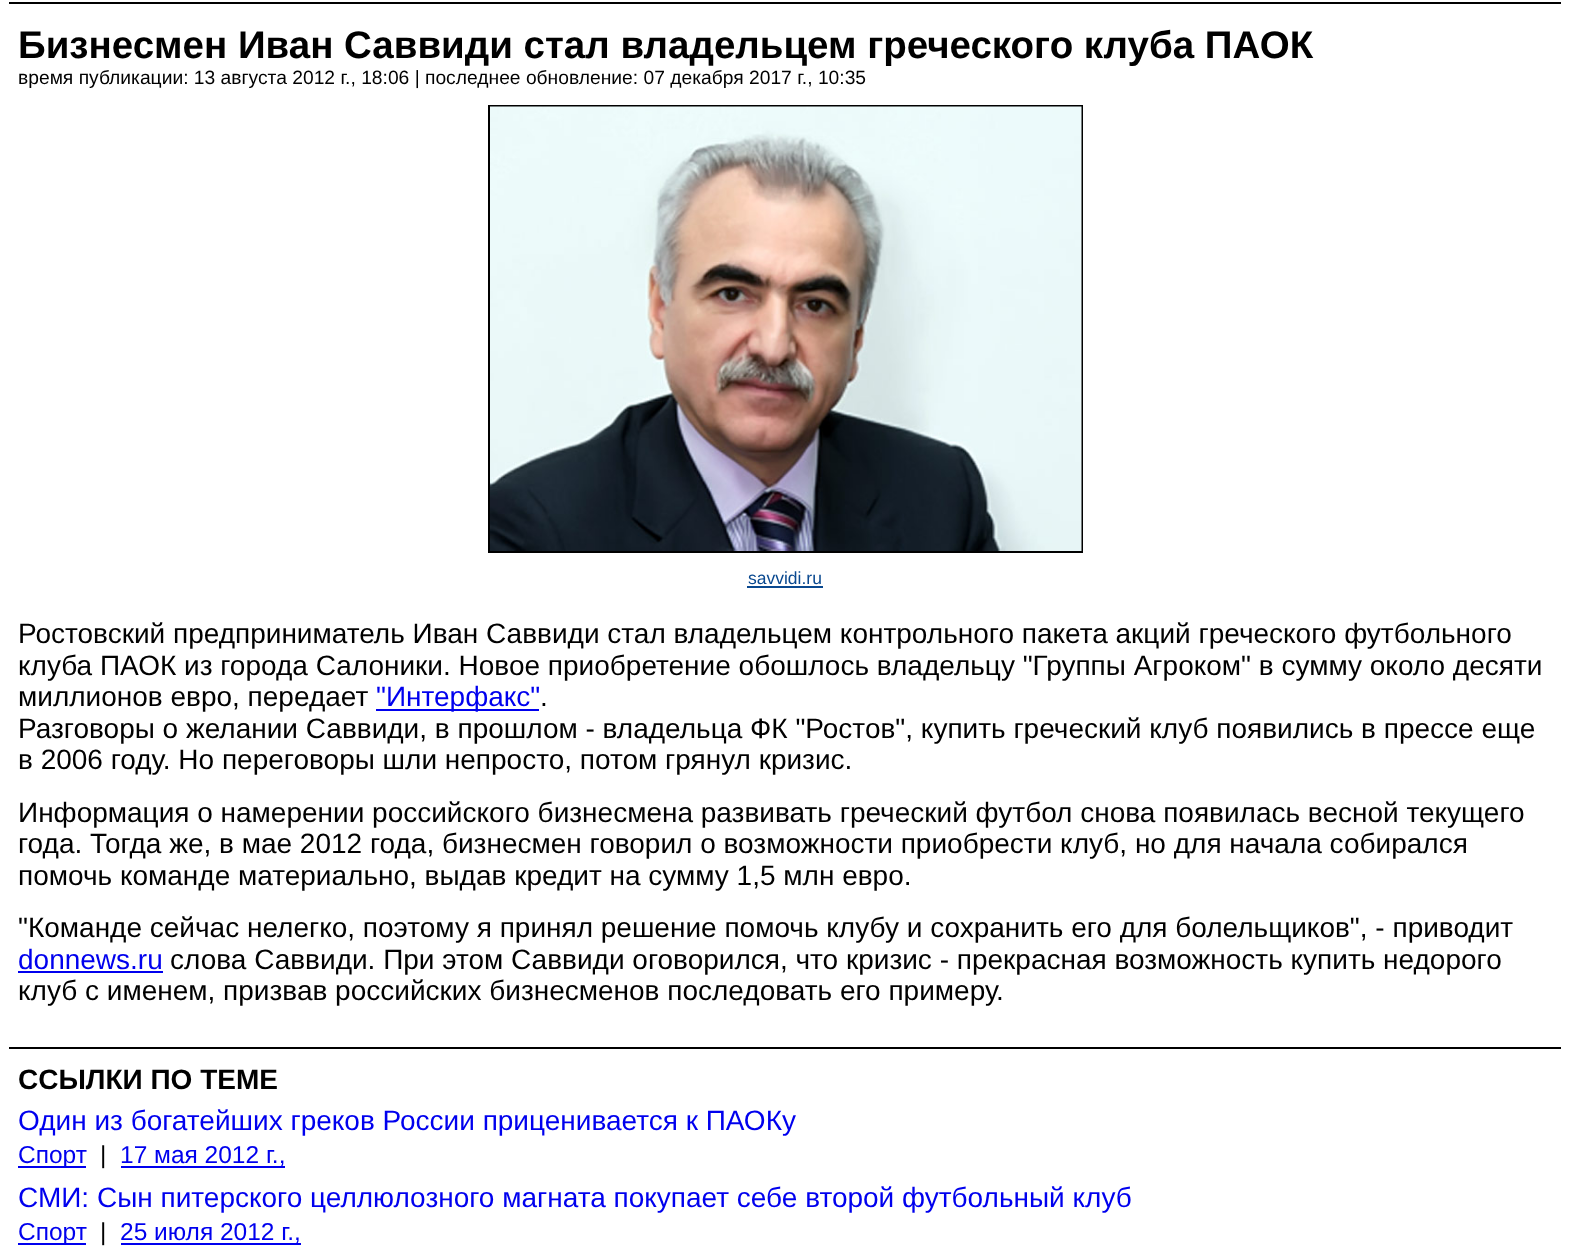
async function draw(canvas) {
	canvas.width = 1569;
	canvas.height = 1255;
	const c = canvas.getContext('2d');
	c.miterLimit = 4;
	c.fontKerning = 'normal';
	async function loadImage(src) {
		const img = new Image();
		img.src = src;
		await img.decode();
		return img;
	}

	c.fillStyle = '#fff';
	c.fillRect(0, 0, 1569, 1255);
	c.fillStyle = '#000';
	c.fillRect(9, 2, 1552, 2);
	c.fillRect(9, 1047, 1552, 2);
	c.font = 'bold 38.5px Liberation Sans';
	c.fillText('Бизнесмен Иван Саввиди стал владельцем греческого клуба ПАОК', 18, 58);
	c.font = '19.25px Liberation Sans';
	c.fillText('время публикации: 13 августа 2012 г., 18:06 | последнее обновление: 07 декабря 2017 г., 10:35', 18, 84);
	c.strokeStyle = '#000';
	c.lineWidth = 2;
	c.strokeRect(489, 106, 593, 446);
	c.drawImage(await loadImage('img1.png'), 490, 106, 592, 445);
	c.font = '17.5px Liberation Sans';
	c.fillStyle = '#09488f';
	c.fillText('savvidi.ru', 748, 584);
	c.fillRect(747, 586, 76, 2);
	c.font = '28px Liberation Sans';
	c.fillStyle = '#000';
	for (const [text, x, y] of [
		['Ростовский предприниматель Иван Саввиди стал владельцем контрольного пакета акций греческого футбольного', 18, 643],
		['клуба ПАОК из города Салоники. Новое приобретение обошлось владельцу "Группы Агроком" в сумму около десяти', 18, 675],
		['миллионов евро, передает', 18, 706],
	]) {
		c.fillText(text, x, y);
	}
	c.fillStyle = '#00e';
	c.fillRect(376, 709, 163, 2);
	c.fillText('"Интерфакс"', 376, 706);
	c.fillStyle = '#000';
	for (const [text, x, y] of [
		['.', 540, 706],
		['Разговоры о желании Саввиди, в прошлом - владельца ФК "Ростов", купить греческий клуб появились в прессе еще', 18, 738],
		['в 2006 году. Но переговоры шли непросто, потом грянул кризис.', 18, 769],
		['Информация о намерении российского бизнесмена развивать греческий футбол снова появилась весной текущего', 18, 822],
		['года. Тогда же, в мае 2012 года, бизнесмен говорил о возможности приобрести клуб, но для начала собирался', 18, 853],
		['помочь команде материально, выдав кредит на сумму 1,5 млн евро.', 18, 885],
		['"Команде сейчас нелегко, поэтому я принял решение помочь клубу и сохранить его для болельщиков", - приводит', 18, 937],
	]) {
		c.fillText(text, x, y);
	}
	c.fillStyle = '#00e';
	c.fillText('donnews.ru', 18, 969);
	c.fillRect(18, 971, 145, 2);
	c.fillStyle = '#000';
	c.fillText('слова Саввиди. При этом Саввиди оговорился, что кризис - прекрасная возможность купить недорого', 170, 969);
	c.fillText('клуб с именем, призвав российских бизнесменов последовать его примеру.', 18, 1000);
	c.font = 'bold 28px Liberation Sans';
	c.fillText('ССЫЛКИ ПО ТЕМЕ', 18, 1089);
	c.font = '28px Liberation Sans';
	c.fillStyle = '#00e';
	c.fillText('Один из богатейших греков России приценивается к ПАОКу', 18, 1130);
	c.fillRect(18, 1166, 68, 2);
	c.font = '24.5px Liberation Sans';
	c.fillText('Спорт', 18, 1163);
	c.fillStyle = '#000';
	c.fillText('|', 100, 1163);
	c.fillStyle = '#00e';
	c.fillRect(121, 1166, 164, 2);
	c.fillText('17 мая 2012 г.,', 120, 1163);
	c.font = '28px Liberation Sans';
	c.fillText('СМИ: Сын питерского целлюлозного магната покупает себе второй футбольный клуб', 18, 1207);
	c.fillRect(18, 1243, 68, 2);
	c.font = '24.5px Liberation Sans';
	c.fillText('Спорт', 18, 1240);
	c.fillStyle = '#000';
	c.fillText('|', 100, 1240);
	c.fillStyle = '#00e';
	c.fillRect(121, 1243, 180, 2);
	c.fillText('25 июля 2012 г.,', 120, 1240);
}

draw(document.querySelector('canvas'));
